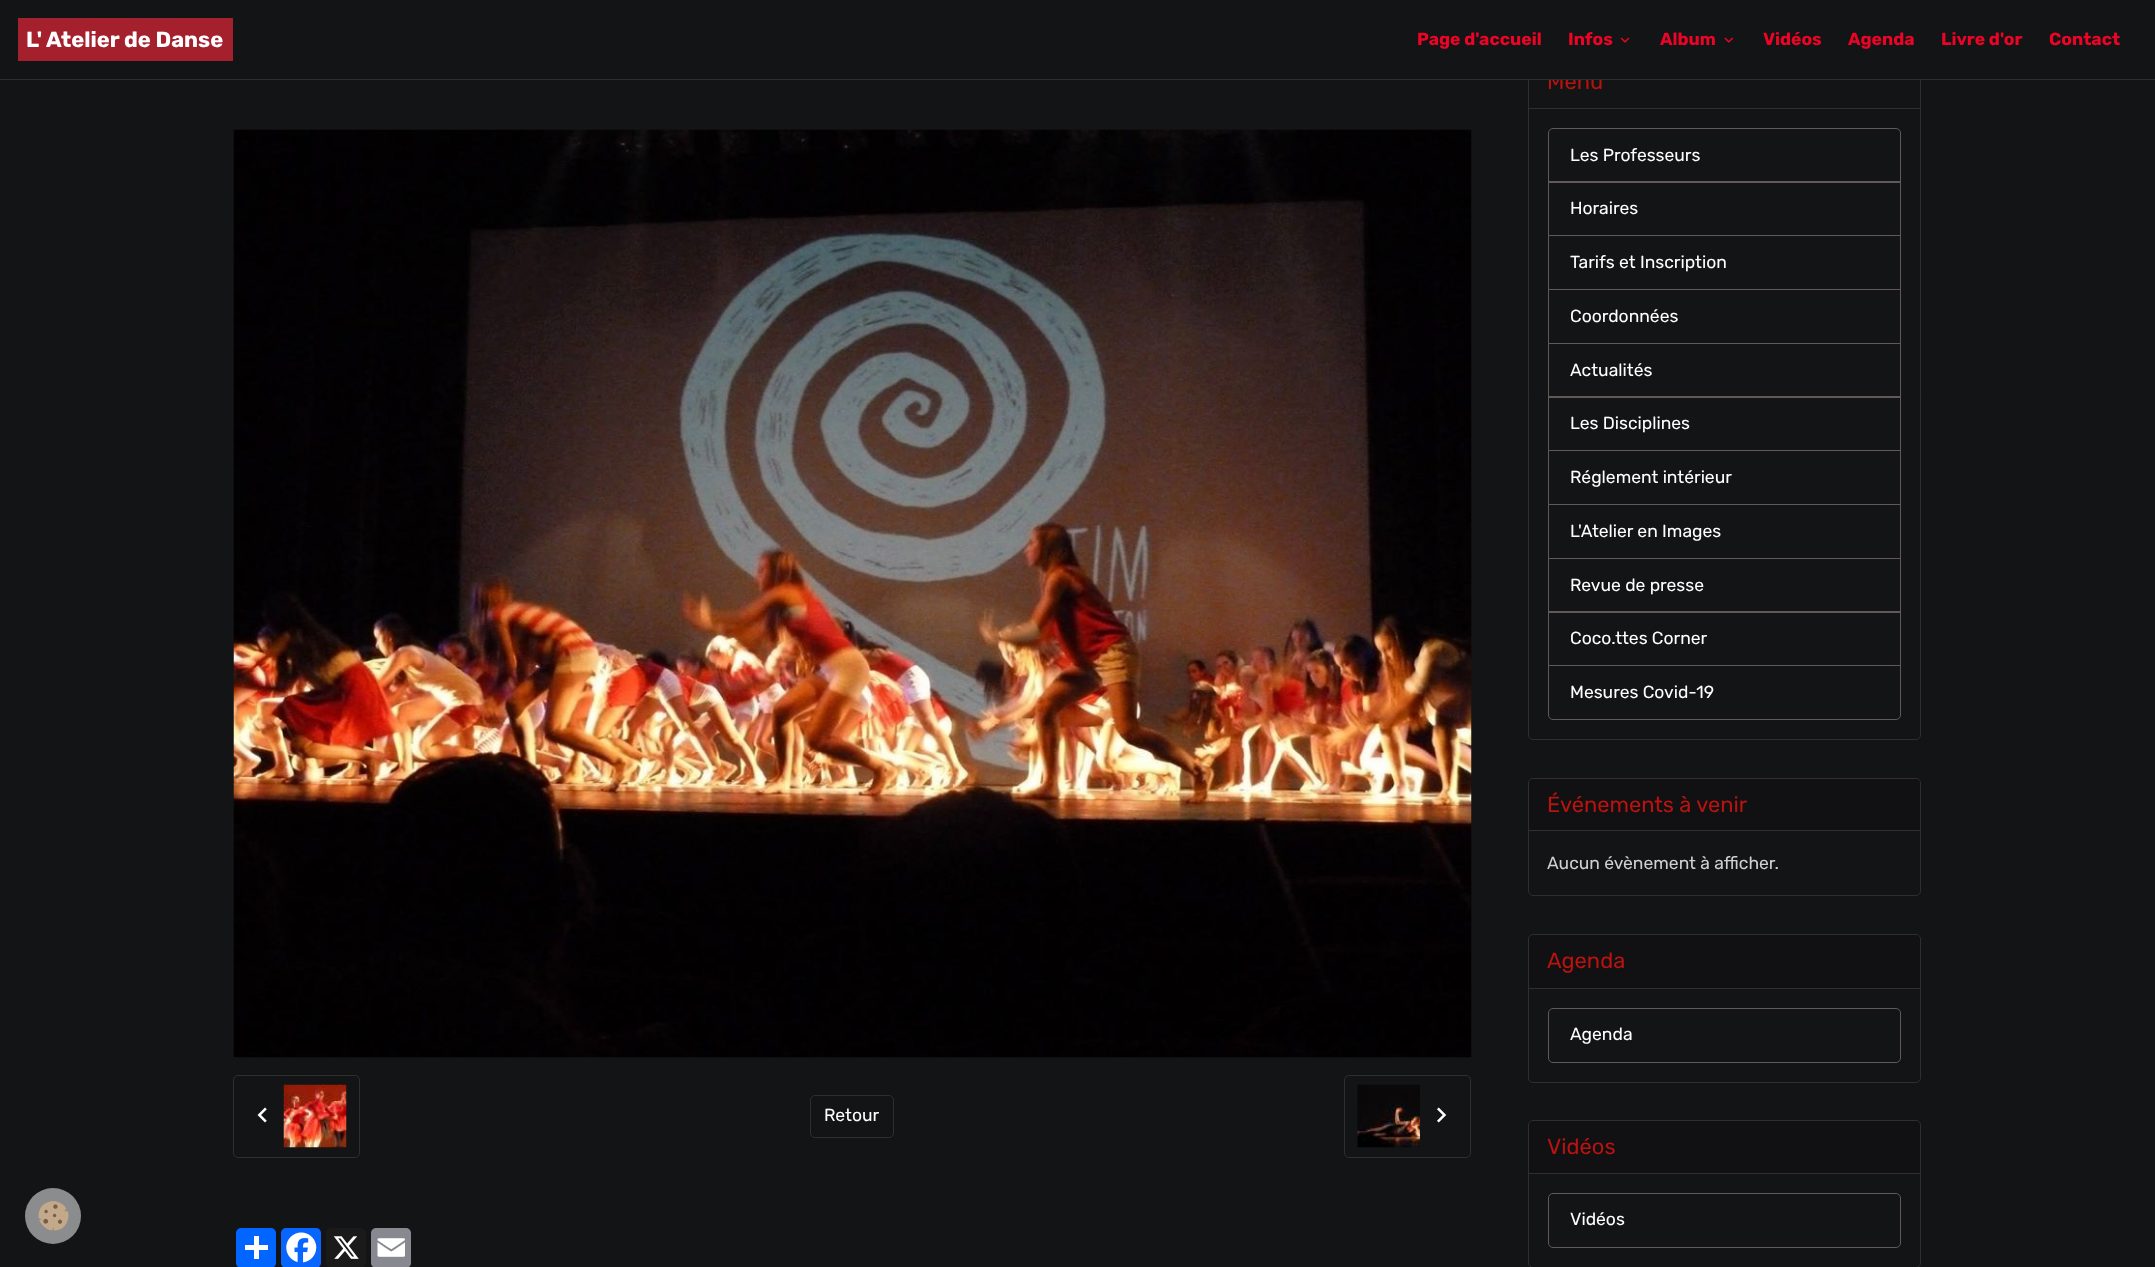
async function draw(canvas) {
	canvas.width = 2155;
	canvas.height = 1267;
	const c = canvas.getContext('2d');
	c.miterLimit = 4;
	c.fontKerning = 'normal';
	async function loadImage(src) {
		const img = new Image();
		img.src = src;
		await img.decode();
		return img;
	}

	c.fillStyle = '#131416';
	c.fillRect(0, 0, 2155, 1267);
	c.beginPath();
	c.roundRect(1528.5, 55.5, 392, 684, 4.5);
	c.strokeStyle = '#2f2f2f';
	c.stroke();
	c.font = '21.9px Rubik';
	c.fillStyle = '#b8130e';
	c.fillText('Menu', 1547, 89);
	for (const [x, y, w, h, color] of [
		[1528, 55, 393, 24, '#131416'],
		[0, 79, 2155, 1, '#2f2f2f'],
		[18, 18, 215, 43, '#a4202d'],
	]) {
		c.fillStyle = color;
		c.fillRect(x, y, w, h);
	}
	c.font = 'bold 21.9px Rubik';
	c.fillStyle = '#fff';
	c.fillText('L\' Atelier de Danse', 26, 47);
	c.font = 'bold 17.5px Rubik';
	c.fillStyle = '#eb0426';
	c.fillText('Page d\'accueil', 1417, 45);
	c.fillText('Infos', 1568, 45);
	c.drawImage(await loadImage('img1.png'), 1620, 37, 10, 6);
	c.fillText('Album', 1660, 45);
	c.drawImage(await loadImage('img2.png'), 1724, 37, 9, 6);
	for (const [text, x, y] of [
		['Vidéos', 1763, 45],
		['Agenda', 1848, 45],
		['Livre d\'or', 1941, 45],
		['Contact', 2049, 45],
	]) {
		c.fillText(text, x, y);
	}
	c.fillStyle = '#8b8c8d';
	c.beginPath();
	c.arc(53, 1216, 28, 0, 2 * Math.PI);
	c.fill();
	c.drawImage(await loadImage('img3.png'), 38, 1201, 31, 30);
	c.drawImage(await loadImage('img4.png'), 233, 129, 1239, 929);
	c.beginPath();
	c.roundRect(233.5, 1075.5, 126, 82, 4.5);
	c.stroke();
	c.drawImage(await loadImage('img5.png'), 257, 1107, 10, 16);
	c.drawImage(await loadImage('img6.png'), 283, 1084, 64, 64);
	c.beginPath();
	c.roundRect(810.5, 1095.5, 83, 42, 4.5);
	c.stroke();
	c.font = '17.5px Rubik';
	c.fillStyle = '#fff';
	c.fillText('Retour', 824, 1121);
	c.beginPath();
	c.roundRect(1344.5, 1075.5, 126, 82, 4.5);
	c.stroke();
	c.drawImage(await loadImage('img7.png'), 1357, 1084, 63, 64);
	c.drawImage(await loadImage('img8.png'), 1437, 1107, 10, 16);
	c.fillStyle = '#0166ff';
	c.beginPath();
	c.roundRect(236, 1228, 40, 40, 5);
	c.fill();
	c.fillStyle = '#fff';
	c.fillRect(254, 1236, 5, 23);
	c.fillRect(245, 1245, 23, 5);
	c.fillStyle = '#0866ff';
	c.beginPath();
	c.roundRect(281, 1228, 40, 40, 5);
	c.fill();
	c.drawImage(await loadImage('img9.png'), 286, 1232, 31, 31);
	c.fillStyle = '#1a1a1a';
	c.beginPath();
	c.roundRect(326, 1228, 40, 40, 5);
	c.fill();
	c.drawImage(await loadImage('img10.png'), 333, 1236, 26, 23);
	c.fillStyle = '#888990';
	c.beginPath();
	c.roundRect(371, 1228, 40, 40, 5);
	c.fill();
	c.drawImage(await loadImage('img11.png'), 377, 1238, 28, 19);
	c.fillStyle = '#2f2f2f';
	c.fillRect(1529, 108, 391, 1);
	c.beginPath();
	c.roundRect(1548.5, 128.5, 352, 54, [4.5, 4.5, 0, 0]);
	c.strokeStyle = '#635858';
	c.stroke();
	c.fillStyle = '#fff';
	c.fillText('Les Professeurs', 1570, 161);
	c.strokeRect(1548.5, 181.5, 352, 54);
	c.fillText('Horaires', 1570, 214);
	c.strokeRect(1548.5, 235.5, 352, 54);
	c.fillText('Tarifs et Inscription', 1570, 268);
	c.strokeRect(1548.5, 289.5, 352, 54);
	c.fillText('Coordonnées', 1570, 322);
	c.strokeRect(1548.5, 343.5, 352, 54);
	c.fillText('Actualités', 1570, 376);
	c.strokeRect(1548.5, 396.5, 352, 54);
	c.fillText('Les Disciplines', 1570, 429);
	c.strokeRect(1548.5, 450.5, 352, 54);
	c.fillText('Réglement intérieur', 1570, 483);
	c.strokeRect(1548.5, 504.5, 352, 54);
	c.fillText('L\'Atelier en Images', 1570, 537);
	c.strokeRect(1548.5, 558.5, 352, 54);
	c.fillText('Revue de presse', 1570, 591);
	c.strokeRect(1548.5, 611.5, 352, 54);
	c.fillText('Coco.ttes Corner', 1570, 644);
	c.beginPath();
	c.roundRect(1548.5, 665.5, 352, 54, [0, 0, 4.5, 4.5]);
	c.stroke();
	c.fillText('Mesures Covid-19', 1570, 698);
	c.beginPath();
	c.roundRect(1528.5, 778.5, 392, 117, 4.5);
	c.strokeStyle = '#2f2f2f';
	c.stroke();
	c.fillStyle = '#0000001a';
	c.beginPath();
	c.roundRect(1529, 779, 391, 52, [3, 3, 0, 0]);
	c.fill();
	c.fillStyle = '#2f2f2f';
	c.fillRect(1529, 830, 391, 1);
	c.font = '21.9px Rubik';
	c.fillStyle = '#b8130e';
	c.fillText('Événements à venir', 1547, 812);
	c.font = '17.5px Rubik';
	c.fillStyle = '#d0d0d0';
	c.fillText('Aucun évènement à afficher.', 1547, 869);
	c.beginPath();
	c.roundRect(1528.5, 934.5, 392, 148, 4.5);
	c.stroke();
	c.fillStyle = '#0000001a';
	c.beginPath();
	c.roundRect(1529, 935, 391, 54, [3, 3, 0, 0]);
	c.fill();
	c.fillStyle = '#2f2f2f';
	c.fillRect(1529, 988, 391, 1);
	c.font = '21.9px Rubik';
	c.fillStyle = '#b8130e';
	c.fillText('Agenda', 1547, 968);
	c.beginPath();
	c.roundRect(1548.5, 1008.5, 352, 54, 4.5);
	c.strokeStyle = '#635858';
	c.stroke();
	c.font = '17.5px Rubik';
	c.fillStyle = '#fff';
	c.fillText('Agenda', 1570, 1040);
	c.beginPath();
	c.roundRect(1528.5, 1120.5, 392, 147, 4.5);
	c.strokeStyle = '#2f2f2f';
	c.stroke();
	c.fillStyle = '#0000001a';
	c.beginPath();
	c.roundRect(1529, 1121, 391, 53, [3, 3, 0, 0]);
	c.fill();
	c.fillStyle = '#2f2f2f';
	c.fillRect(1529, 1173, 391, 1);
	c.font = '21.9px Rubik';
	c.fillStyle = '#b8130e';
	c.fillText('Vidéos', 1547, 1154);
	c.beginPath();
	c.roundRect(1548.5, 1193.5, 352, 54, 4.5);
	c.strokeStyle = '#635858';
	c.stroke();
	c.font = '17.5px Rubik';
	c.fillStyle = '#fff';
	c.fillText('Vidéos', 1570, 1225);
}

draw(document.querySelector('canvas'));
